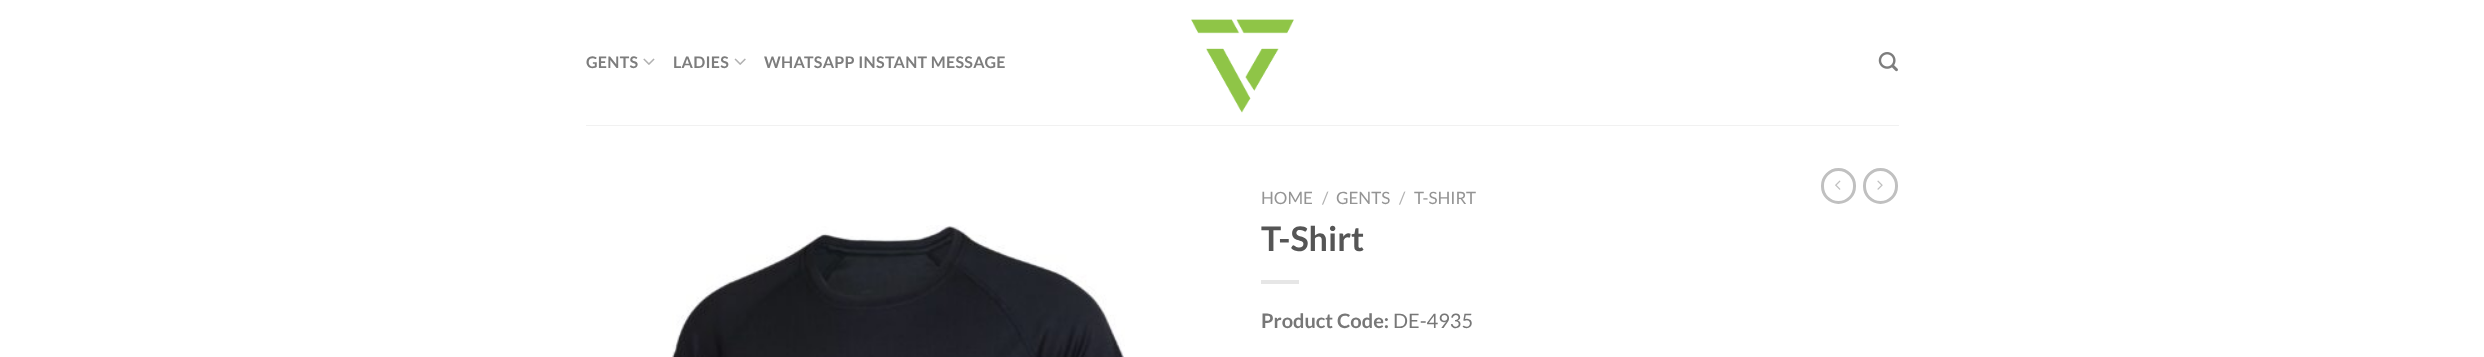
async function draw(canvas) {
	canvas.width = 2484;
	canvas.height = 357;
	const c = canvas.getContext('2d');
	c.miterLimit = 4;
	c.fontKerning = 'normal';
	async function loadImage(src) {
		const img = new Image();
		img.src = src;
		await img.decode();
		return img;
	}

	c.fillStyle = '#fff';
	c.fillRect(0, 0, 2484, 357);
	c.letterSpacing = '0.3px';
	c.font = 'bold 16px Lato';
	c.fillStyle = '#7d7d7d';
	c.fillText('GENTS', 586, 68);
	c.drawImage(await loadImage('img1.png'), 643, 58, 12, 7);
	c.fillText('LADIES', 673, 68);
	c.drawImage(await loadImage('img2.png'), 734, 58, 12, 7);
	c.fillText('WHATSAPP INSTANT MESSAGE', 764, 68);
	c.drawImage(await loadImage('img3.png'), 1191, 19, 103, 94);
	c.drawImage(await loadImage('img4.png'), 1878, 52, 20, 20);
	c.fillStyle = '#f1f1f1';
	c.fillRect(586, 125, 1313, 1);
	c.beginPath();
	c.roundRect(1822.5, 169.5, 32, 33, 16);
	c.strokeStyle = '#c0c0c0';
	c.lineWidth = 3;
	c.stroke();
	c.drawImage(await loadImage('img5.png'), 1835, 180, 6, 10);
	c.beginPath();
	c.roundRect(1864.5, 169.5, 32, 33, 16);
	c.stroke();
	c.drawImage(await loadImage('img6.png'), 1877, 180, 6, 10);
	c.drawImage(await loadImage('img7.png'), 672, 225, 453, 132);
	c.letterSpacing = '0px';
	c.font = '17px Lato';
	c.fillStyle = '#949494';
	c.fillText('HOME', 1261, 204);
	c.fillStyle = '#b2b2b2';
	c.fillText('/', 1322, 204);
	c.fillStyle = '#949494';
	c.fillText('GENTS', 1336, 204);
	c.fillStyle = '#b2b2b2';
	c.fillText('/', 1399, 204);
	c.fillStyle = '#949494';
	c.fillText('T-SHIRT', 1414, 204);
	c.font = 'bold 34px Lato';
	c.fillStyle = '#555';
	c.fillText('T-Shirt', 1261, 251);
	c.fillStyle = '#e6e6e6';
	c.fillRect(1261, 280, 38, 4);
	c.font = 'bold 20px Lato';
	c.fillStyle = '#777';
	c.fillText('Product Code:', 1261, 328);
	c.font = '20px Lato';
	c.fillText('DE-4935', 1393, 328);
}

draw(document.querySelector('canvas'));
